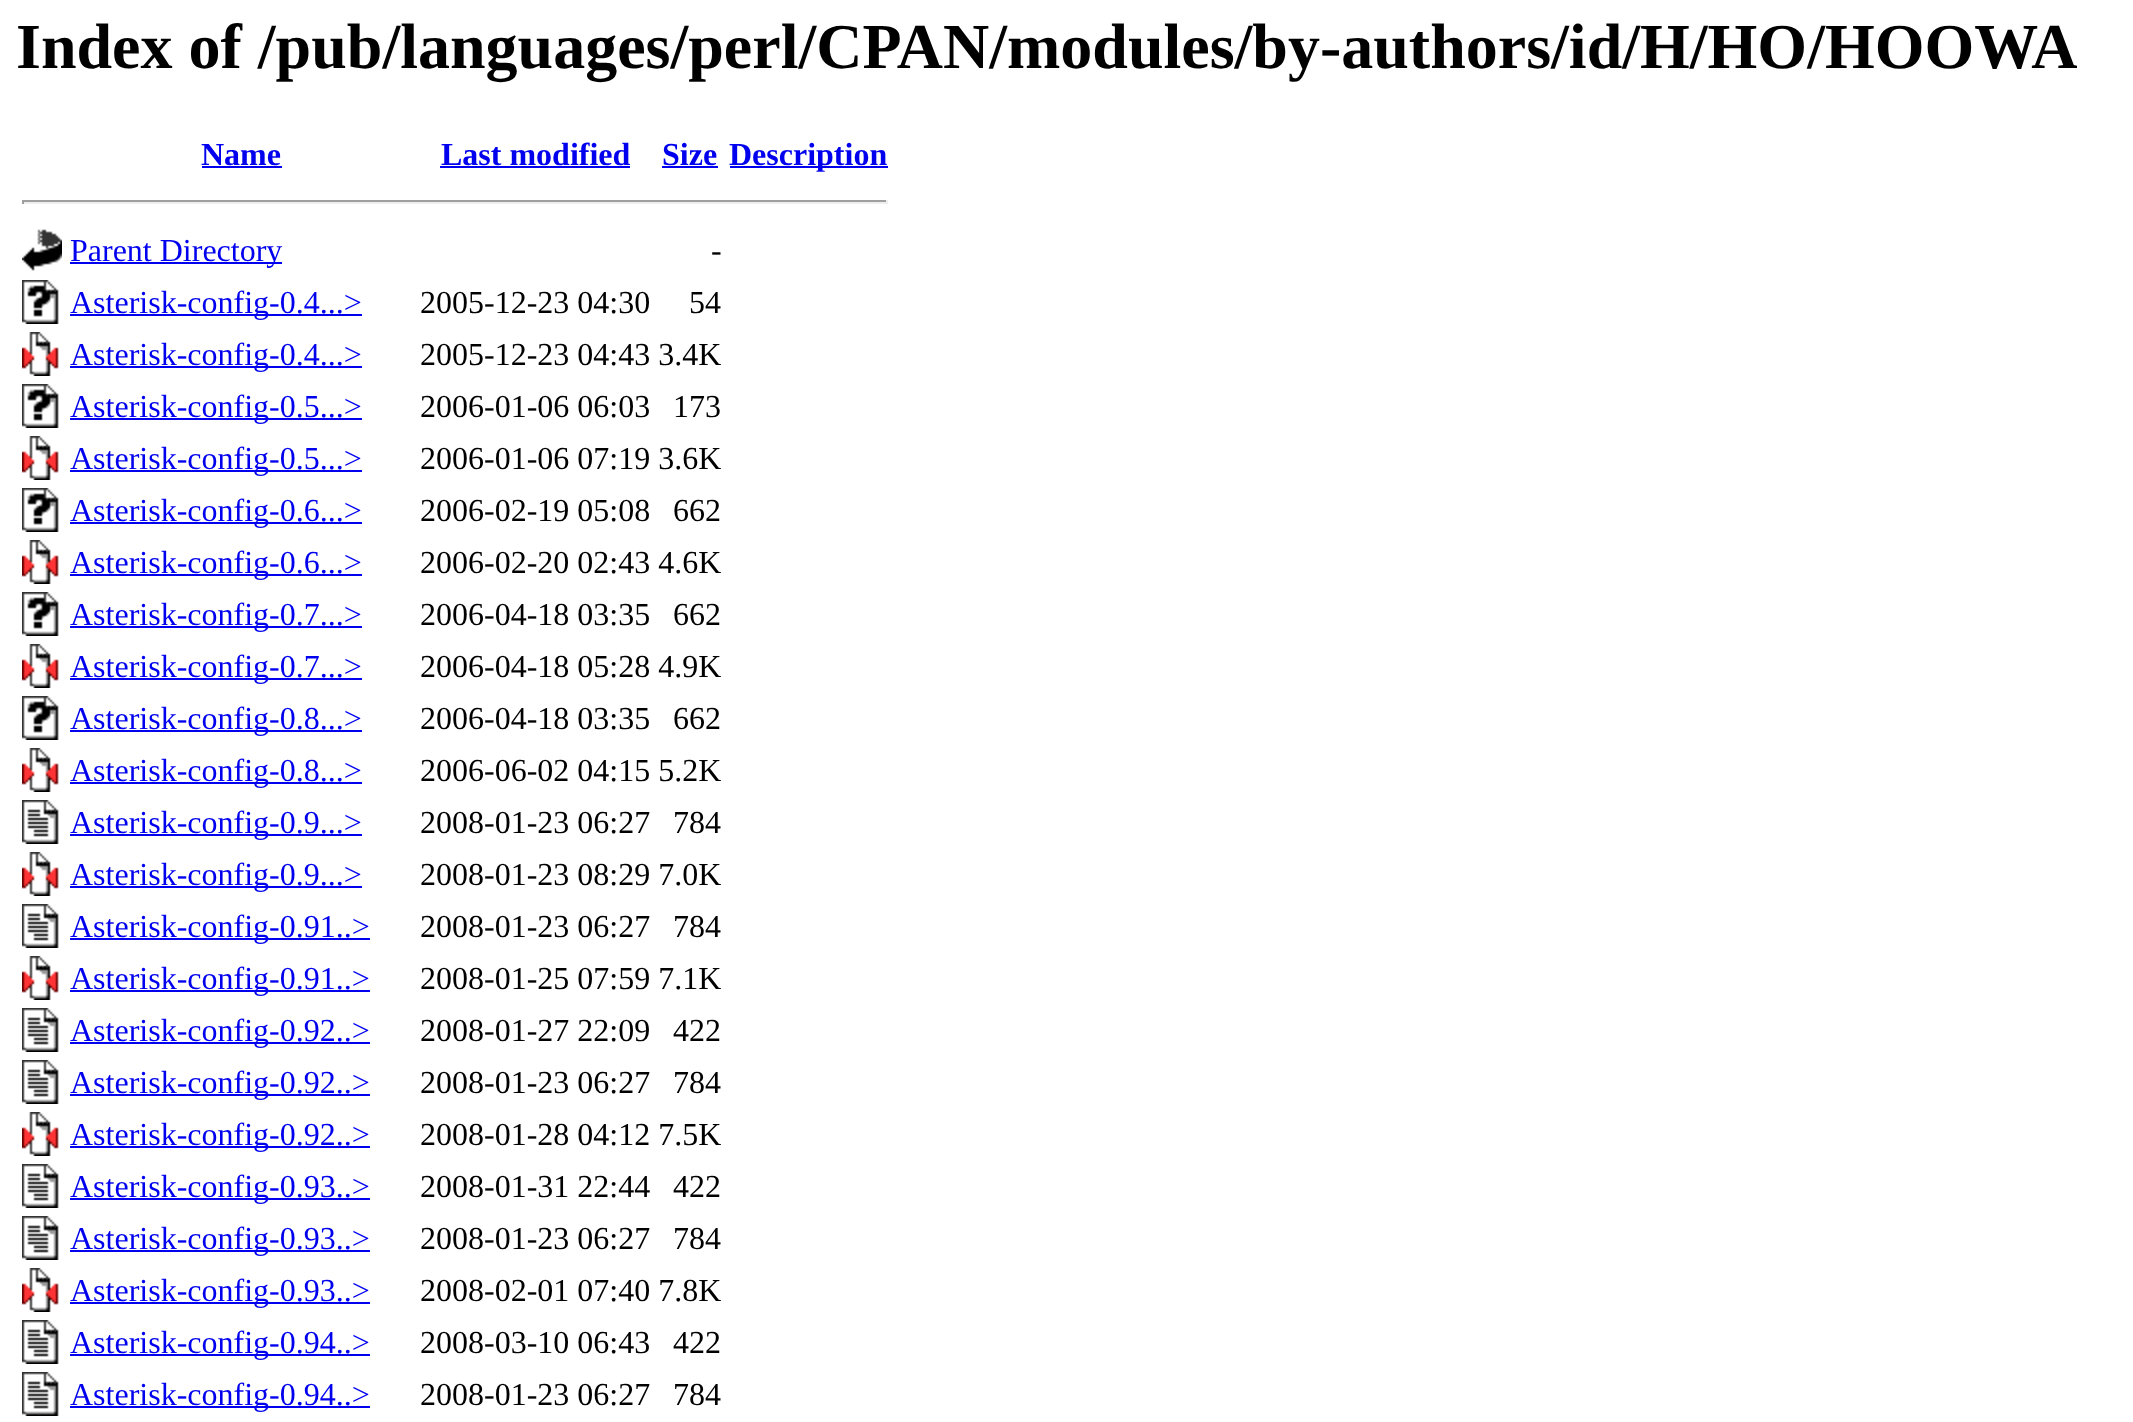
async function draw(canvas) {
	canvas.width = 2133;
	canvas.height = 1422;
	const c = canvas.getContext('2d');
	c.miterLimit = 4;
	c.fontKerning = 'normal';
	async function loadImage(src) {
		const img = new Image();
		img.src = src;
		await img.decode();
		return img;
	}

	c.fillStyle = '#fff';
	c.fillRect(0, 0, 2133, 1422);
	c.font = 'bold 64px Liberation Serif';
	c.fillStyle = '#000';
	c.fillText('Index of /pub/languages/perl/CPAN/modules/by-authors/id/H/HO/HOOWA', 16, 68);
	c.font = 'bold 32px Liberation Serif';
	c.fillStyle = '#00e';
	c.fillText('Name', 201, 165);
	c.fillRect(202, 166, 80, 2);
	c.fillText('Last modified', 441, 165);
	c.fillRect(440, 166, 190, 2);
	c.fillText('Size', 662, 165);
	c.fillRect(662, 166, 56, 2);
	c.fillRect(730, 166, 158, 2);
	c.fillText('Description', 729, 165);
	for (const [x, y, w, h, color] of [
		[22, 200, 866, 2, '#9f9f9f'],
		[886, 200, 2, 4, '#eee'],
		[22, 202, 866, 2, '#eee'],
		[22, 200, 2, 4, '#9f9f9f'],
	]) {
		c.fillStyle = color;
		c.fillRect(x, y, w, h);
	}
	c.drawImage(await loadImage('img1.png'), 22, 229, 40, 42);
	c.fillStyle = '#00e';
	c.fillRect(70, 262, 212, 2);
	c.font = '32px Liberation Serif';
	c.fillText('Parent Directory', 70, 261);
	c.fillStyle = '#000';
	c.fillText('-', 711, 261);
	c.drawImage(await loadImage('img2.png'), 22, 280, 37, 44);
	c.fillStyle = '#00e';
	c.fillRect(70, 314, 292, 2);
	c.fillText('Asterisk-config-0.4...>', 70, 313);
	c.fillStyle = '#000';
	c.fillText('2005-12-23 04:30', 420, 313);
	c.fillText('54', 689, 313);
	c.drawImage(await loadImage('img3.png'), 22, 332, 37, 44);
	c.fillStyle = '#00e';
	c.fillRect(70, 366, 292, 2);
	c.fillText('Asterisk-config-0.4...>', 70, 365);
	c.fillStyle = '#000';
	c.fillText('2005-12-23 04:43 3.4K', 420, 365);
	c.drawImage(await loadImage('img2.png'), 22, 384, 37, 44);
	c.fillStyle = '#00e';
	c.fillRect(70, 418, 292, 2);
	c.fillText('Asterisk-config-0.5...>', 70, 417);
	c.fillStyle = '#000';
	c.fillText('2006-01-06 06:03', 420, 417);
	c.fillText('173', 673, 417);
	c.drawImage(await loadImage('img3.png'), 22, 436, 37, 44);
	c.fillStyle = '#00e';
	c.fillRect(70, 470, 292, 2);
	c.fillText('Asterisk-config-0.5...>', 70, 469);
	c.fillStyle = '#000';
	c.fillText('2006-01-06 07:19 3.6K', 420, 469);
	c.drawImage(await loadImage('img2.png'), 22, 488, 37, 44);
	c.fillStyle = '#00e';
	c.fillRect(70, 522, 292, 2);
	c.fillText('Asterisk-config-0.6...>', 70, 521);
	c.fillStyle = '#000';
	c.fillText('2006-02-19 05:08', 420, 521);
	c.fillText('662', 673, 521);
	c.drawImage(await loadImage('img3.png'), 22, 540, 37, 44);
	c.fillStyle = '#00e';
	c.fillRect(70, 574, 292, 2);
	c.fillText('Asterisk-config-0.6...>', 70, 573);
	c.fillStyle = '#000';
	c.fillText('2006-02-20 02:43 4.6K', 420, 573);
	c.drawImage(await loadImage('img2.png'), 22, 592, 37, 44);
	c.fillStyle = '#00e';
	c.fillRect(70, 626, 292, 2);
	c.fillText('Asterisk-config-0.7...>', 70, 625);
	c.fillStyle = '#000';
	c.fillText('2006-04-18 03:35', 420, 625);
	c.fillText('662', 673, 625);
	c.drawImage(await loadImage('img3.png'), 22, 644, 37, 44);
	c.fillStyle = '#00e';
	c.fillRect(70, 678, 292, 2);
	c.fillText('Asterisk-config-0.7...>', 70, 677);
	c.fillStyle = '#000';
	c.fillText('2006-04-18 05:28 4.9K', 420, 677);
	c.drawImage(await loadImage('img2.png'), 22, 696, 37, 44);
	c.fillStyle = '#00e';
	c.fillRect(70, 730, 292, 2);
	c.fillText('Asterisk-config-0.8...>', 70, 729);
	c.fillStyle = '#000';
	c.fillText('2006-04-18 03:35', 420, 729);
	c.fillText('662', 673, 729);
	c.drawImage(await loadImage('img3.png'), 22, 748, 37, 44);
	c.fillStyle = '#00e';
	c.fillRect(70, 782, 292, 2);
	c.fillText('Asterisk-config-0.8...>', 70, 781);
	c.fillStyle = '#000';
	c.fillText('2006-06-02 04:15 5.2K', 420, 781);
	c.drawImage(await loadImage('img4.png'), 22, 800, 37, 44);
	c.fillStyle = '#00e';
	c.fillRect(70, 834, 292, 2);
	c.fillText('Asterisk-config-0.9...>', 70, 833);
	c.fillStyle = '#000';
	c.fillText('2008-01-23 06:27', 420, 833);
	c.fillText('784', 673, 833);
	c.drawImage(await loadImage('img3.png'), 22, 852, 37, 44);
	c.fillStyle = '#00e';
	c.fillRect(70, 886, 292, 2);
	c.fillText('Asterisk-config-0.9...>', 70, 885);
	c.fillStyle = '#000';
	c.fillText('2008-01-23 08:29 7.0K', 420, 885);
	c.drawImage(await loadImage('img4.png'), 22, 904, 37, 44);
	c.fillStyle = '#00e';
	c.fillRect(70, 938, 300, 2);
	c.fillText('Asterisk-config-0.91..>', 70, 937);
	c.fillStyle = '#000';
	c.fillText('2008-01-23 06:27', 420, 937);
	c.fillText('784', 673, 937);
	c.drawImage(await loadImage('img3.png'), 22, 956, 37, 44);
	c.fillStyle = '#00e';
	c.fillRect(70, 990, 300, 2);
	c.fillText('Asterisk-config-0.91..>', 70, 989);
	c.fillStyle = '#000';
	c.fillText('2008-01-25 07:59 7.1K', 420, 989);
	c.drawImage(await loadImage('img4.png'), 22, 1008, 37, 44);
	c.fillStyle = '#00e';
	c.fillRect(70, 1042, 300, 2);
	c.fillText('Asterisk-config-0.92..>', 70, 1041);
	c.fillStyle = '#000';
	c.fillText('2008-01-27 22:09', 420, 1041);
	c.fillText('422', 673, 1041);
	c.drawImage(await loadImage('img4.png'), 22, 1060, 37, 44);
	c.fillStyle = '#00e';
	c.fillRect(70, 1094, 300, 2);
	c.fillText('Asterisk-config-0.92..>', 70, 1093);
	c.fillStyle = '#000';
	c.fillText('2008-01-23 06:27', 420, 1093);
	c.fillText('784', 673, 1093);
	c.drawImage(await loadImage('img3.png'), 22, 1112, 37, 44);
	c.fillStyle = '#00e';
	c.fillRect(70, 1146, 300, 2);
	c.fillText('Asterisk-config-0.92..>', 70, 1145);
	c.fillStyle = '#000';
	c.fillText('2008-01-28 04:12 7.5K', 420, 1145);
	c.drawImage(await loadImage('img4.png'), 22, 1164, 37, 44);
	c.fillStyle = '#00e';
	c.fillRect(70, 1198, 300, 2);
	c.fillText('Asterisk-config-0.93..>', 70, 1197);
	c.fillStyle = '#000';
	c.fillText('2008-01-31 22:44', 420, 1197);
	c.fillText('422', 673, 1197);
	c.drawImage(await loadImage('img4.png'), 22, 1216, 37, 44);
	c.fillStyle = '#00e';
	c.fillRect(70, 1250, 300, 2);
	c.fillText('Asterisk-config-0.93..>', 70, 1249);
	c.fillStyle = '#000';
	c.fillText('2008-01-23 06:27', 420, 1249);
	c.fillText('784', 673, 1249);
	c.drawImage(await loadImage('img3.png'), 22, 1268, 37, 44);
	c.fillStyle = '#00e';
	c.fillRect(70, 1302, 300, 2);
	c.fillText('Asterisk-config-0.93..>', 70, 1301);
	c.fillStyle = '#000';
	c.fillText('2008-02-01 07:40 7.8K', 420, 1301);
	c.drawImage(await loadImage('img4.png'), 22, 1320, 37, 44);
	c.fillStyle = '#00e';
	c.fillRect(70, 1354, 300, 2);
	c.fillText('Asterisk-config-0.94..>', 70, 1353);
	c.fillStyle = '#000';
	c.fillText('2008-03-10 06:43', 420, 1353);
	c.fillText('422', 673, 1353);
	c.drawImage(await loadImage('img4.png'), 22, 1372, 37, 44);
	c.fillStyle = '#00e';
	c.fillRect(70, 1406, 300, 2);
	c.fillText('Asterisk-config-0.94..>', 70, 1405);
	c.fillStyle = '#000';
	c.fillText('2008-01-23 06:27', 420, 1405);
	c.fillText('784', 673, 1405);
}

draw(document.querySelector('canvas'));
